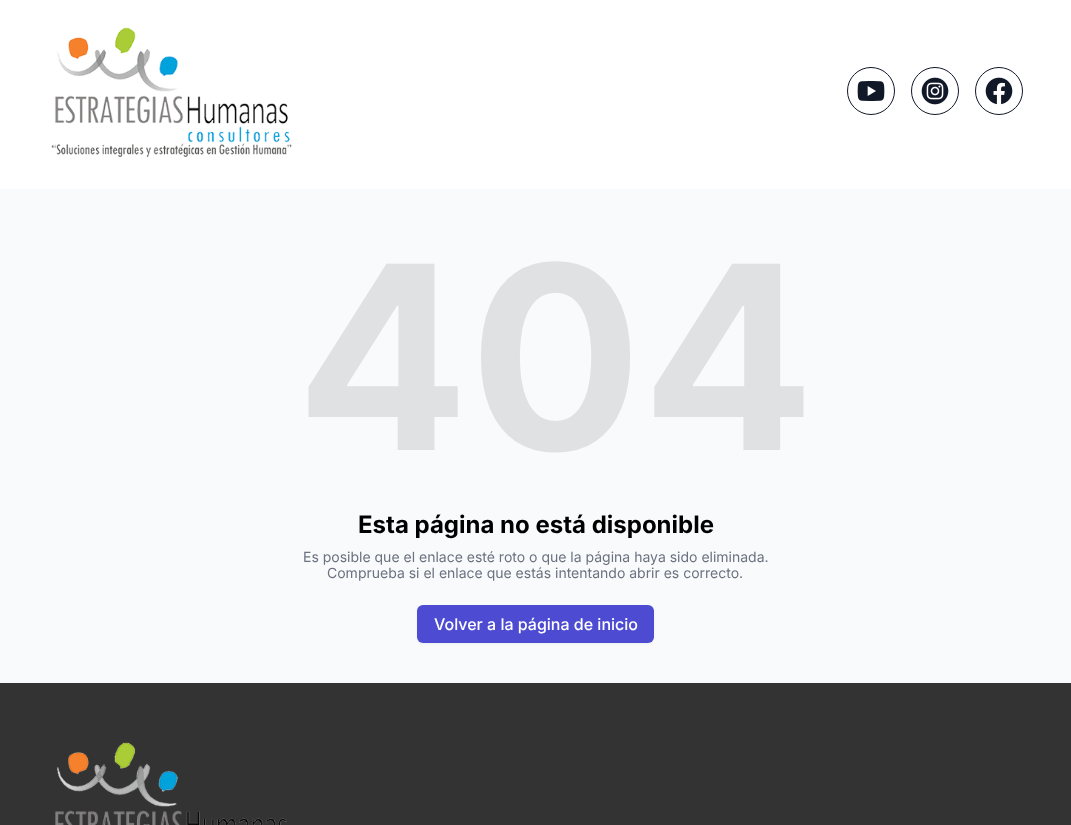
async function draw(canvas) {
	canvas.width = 1071;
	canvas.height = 825;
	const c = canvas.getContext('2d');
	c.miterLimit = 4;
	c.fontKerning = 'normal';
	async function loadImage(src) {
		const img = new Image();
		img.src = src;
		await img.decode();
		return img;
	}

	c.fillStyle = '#fff';
	c.fillRect(0, 0, 1071, 825);
	c.drawImage(await loadImage('img1.png'), 51, 27, 241, 130);
	c.beginPath();
	c.arc(871, 91, 23.5, 0, 2 * Math.PI);
	c.strokeStyle = '#111827';
	c.stroke();
	c.drawImage(await loadImage('img2.png'), 857, 81, 28, 20);
	c.beginPath();
	c.arc(935, 91, 23.5, 0, 2 * Math.PI);
	c.stroke();
	c.drawImage(await loadImage('img3.png'), 921, 77, 28, 28);
	c.beginPath();
	c.arc(999, 91, 23.5, 0, 2 * Math.PI);
	c.stroke();
	c.drawImage(await loadImage('img4.png'), 985, 77, 28, 28);
	c.fillStyle = '#f9fafb';
	c.fillRect(0, 189, 1071, 494);
	c.font = 'bold 256px Inter';
	c.fillStyle = '#e0e1e2';
	c.fillText('404', 296, 450);
	c.font = 'bold 24px Inter';
	c.fillStyle = '#000';
	c.fillText('Esta página no está disponible', 358, 533);
	c.font = '14px Inter';
	c.fillStyle = '#6b7280';
	c.fillText('Es posible que el enlace esté roto o que la página haya sido eliminada.', 303, 562);
	c.fillText('Comprueba si el enlace que estás intentando abrir es correcto.', 327, 578);
	c.fillStyle = '#0000000d';
	c.filter = 'blur(1px)';
	c.beginPath();
	c.roundRect(417, 606, 237, 38, 6);
	c.fill();
	c.filter = 'none';
	c.fillStyle = '#4d4bd2';
	c.beginPath();
	c.roundRect(417, 605, 237, 38, 6);
	c.fill();
	c.font = '500 16px Inter';
	c.fillStyle = '#fff';
	c.fillText('Volver a la página de inicio', 434, 630);
	c.fillStyle = '#333';
	c.fillRect(0, 683, 1071, 142);
	c.drawImage(await loadImage('img5.png'), 55, 742, 232, 83);
}

draw(document.querySelector('canvas'));
